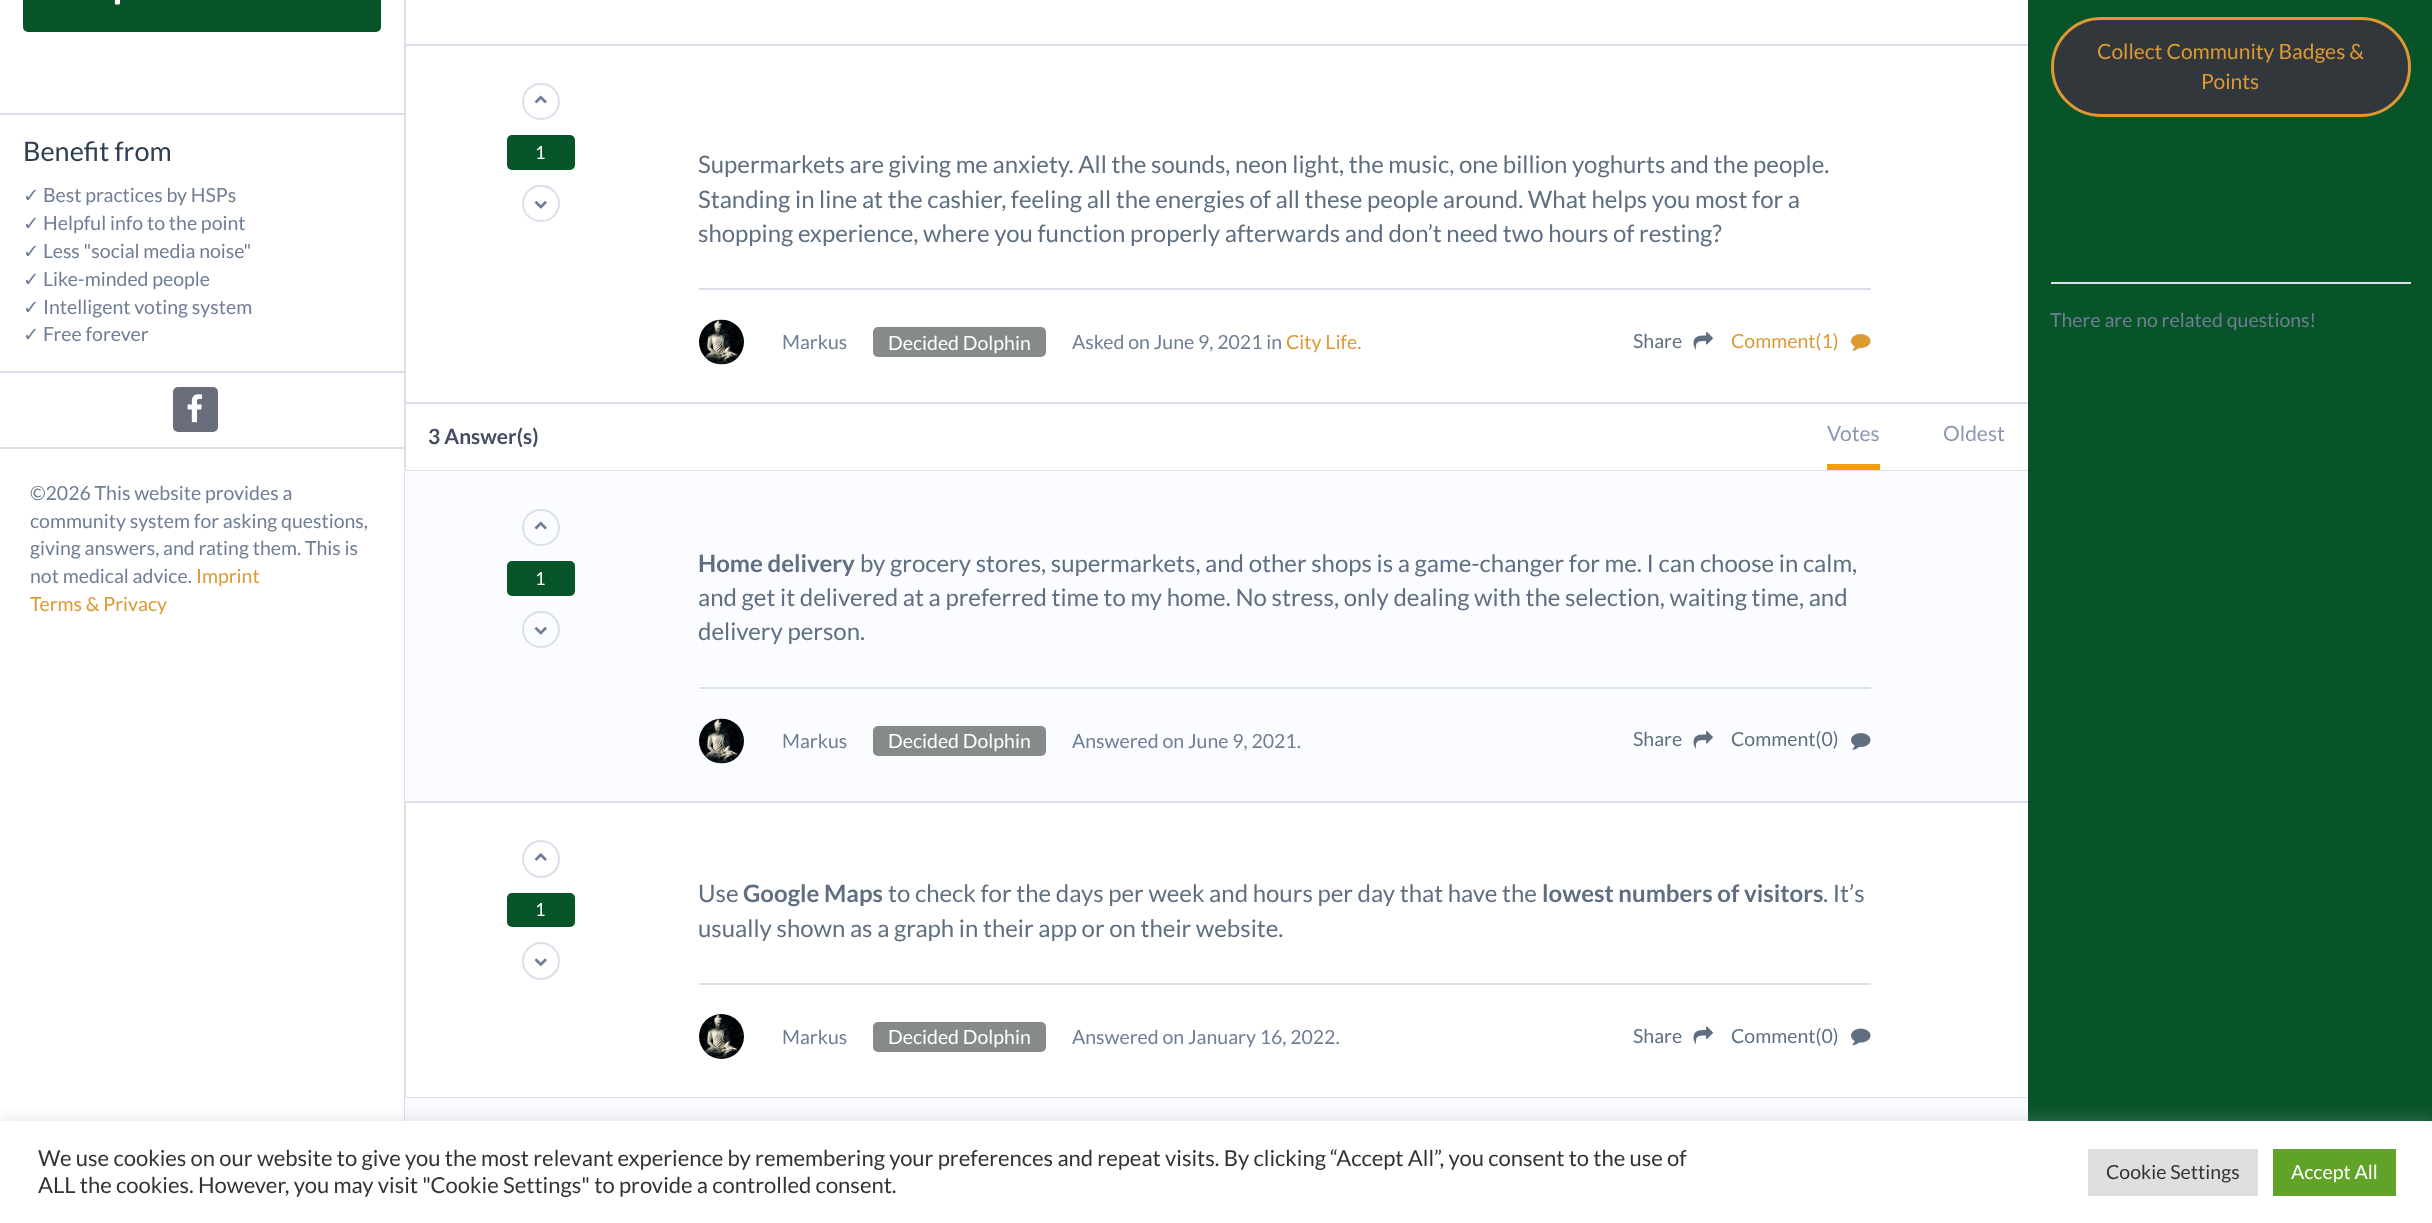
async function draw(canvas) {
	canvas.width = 2432;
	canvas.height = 1223;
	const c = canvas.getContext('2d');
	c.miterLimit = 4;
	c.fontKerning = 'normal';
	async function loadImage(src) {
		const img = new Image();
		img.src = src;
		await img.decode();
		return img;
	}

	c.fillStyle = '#fff';
	c.fillRect(0, 0, 2432, 1223);
	c.fillStyle = '#dadfea';
	c.fillRect(404, 0, 2, 1121);
	c.fillRect(0, 113, 404, 2);
	c.fillStyle = '#085429';
	c.beginPath();
	c.roundRect(23, -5, 358, 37, 5);
	c.fill();
	c.drawImage(await loadImage('img1.png'), 114, 0, 6, 5);
	c.fillStyle = '#dadfea';
	c.fillRect(0, 371, 404, 2);
	c.font = '27px Lato';
	c.fillStyle = '#2c3e50';
	c.fillText('Benefit from', 23, 161);
	c.font = '19.5px DejaVu Sans';
	c.fillStyle = '#6f7d95';
	c.fillText('✓', 23, 202);
	c.font = '19.5px Lato';
	c.fillText('Best practices by HSPs', 43, 202);
	c.font = '19.5px DejaVu Sans';
	c.fillText('✓', 23, 230);
	c.font = '19.5px Lato';
	c.fillText('Helpful info to the point', 43, 230);
	c.font = '19.5px DejaVu Sans';
	c.fillText('✓', 23, 258);
	c.font = '19.5px Lato';
	c.fillText('Less "social media noise"', 43, 258);
	c.font = '19.5px DejaVu Sans';
	c.fillText('✓', 23, 286);
	c.font = '19.5px Lato';
	c.fillText('Like-minded people', 43, 286);
	c.font = '19.5px DejaVu Sans';
	c.fillText('✓', 23, 314);
	c.font = '19.5px Lato';
	c.fillText('Intelligent voting system', 43, 314);
	c.font = '19.5px DejaVu Sans';
	c.fillText('✓', 23, 341);
	c.font = '19.5px Lato';
	c.fillText('Free forever', 43, 341);
	c.fillStyle = '#dadfea';
	c.fillRect(0, 447, 404, 2);
	c.fillStyle = '#6a6e7c';
	c.beginPath();
	c.roundRect(173, 387, 45, 45, 5);
	c.fill();
	c.drawImage(await loadImage('img2.png'), 187, 394, 16, 29);
	c.fillStyle = '#6f7d95';
	for (const [text, x, y] of [
		['©2026 This website provides a', 30, 500],
		['community system for asking questions,', 30, 528],
		['giving answers, and rating them. This is', 30, 555],
		['not medical advice.', 30, 583],
	]) {
		c.fillText(text, x, y);
	}
	c.fillStyle = '#d93';
	c.fillText('Imprint', 196, 583);
	c.fillText('Terms & Privacy', 30, 611);
	c.fillStyle = '#dadfea';
	c.fillRect(405, 44, 1623, 2);
	c.fillRect(405, 402, 1623, 2);
	c.beginPath();
	c.roundRect(523, 84, 36, 35, 17.5);
	c.strokeStyle = '#dadfea';
	c.lineWidth = 2;
	c.stroke();
	c.drawImage(await loadImage('img3.png'), 534, 95, 13, 9);
	c.fillStyle = '#085429';
	c.beginPath();
	c.roundRect(507, 135, 68, 35, 5);
	c.fill();
	c.font = '18px Lato';
	c.fillStyle = '#fff';
	c.fillText('1', 535, 159);
	c.beginPath();
	c.roundRect(523, 186, 36, 35, 17.5);
	c.stroke();
	c.drawImage(await loadImage('img4.png'), 534, 201, 13, 8);
	c.fillStyle = '#dadfea';
	c.fillRect(699, 288, 1172, 2);
	c.font = '24px Lato';
	c.fillStyle = '#5f6f81';
	for (const [text, x, y] of [
		['Supermarkets are giving me anxiety. All the sounds, neon light, the music, one billion yoghurts and the people.', 698, 173],
		['Standing in line at the cashier, feeling all the energies of all these people around. What helps you most for a', 698, 208],
		['shopping experience, where you function properly afterwards and don’t need two hours of resting?', 698, 242],
	]) {
		c.fillText(text, x, y);
	}
	c.drawImage(await loadImage('img5.png'), 699, 319, 45, 46);
	c.font = '19.5px Lato';
	c.fillStyle = '#6f7d95';
	c.fillText('Markus', 782, 349);
	c.fillStyle = '#868b8a';
	c.beginPath();
	c.roundRect(873, 327, 173, 30, 5);
	c.fill();
	c.fillStyle = '#fff';
	c.fillText('Decided Dolphin', 888, 350);
	c.fillStyle = '#6f7d95';
	c.fillText('Asked on June 9, 2021 in', 1072, 349);
	c.fillStyle = '#d93';
	c.fillText('City Life.', 1286, 349);
	c.fillStyle = '#5f6f81';
	c.fillText('Share', 1633, 348);
	c.drawImage(await loadImage('img6.png'), 1693, 332, 20, 18);
	c.fillStyle = '#d93';
	c.fillText('Comment(1)', 1731, 348);
	c.drawImage(await loadImage('img7.png'), 1851, 334, 20, 17);
	c.fillStyle = '#dadfea';
	c.fillRect(405, 470, 1623, 1);
	c.font = 'bold 21px Lato';
	c.fillStyle = '#444c63';
	c.fillText('3 Answer(s)', 428, 444);
	c.fillStyle = '#f39c12';
	c.fillRect(1827, 464, 53, 6);
	c.font = '21px Lato';
	c.fillStyle = '#8c97b2';
	c.fillText('Votes', 1827, 441);
	c.fillText('Oldest', 1943, 441);
	c.fillStyle = '#fbfcff';
	c.fillRect(405, 471, 1623, 330);
	c.fillStyle = '#dadfea';
	c.fillRect(405, 801, 1623, 2);
	c.beginPath();
	c.roundRect(523, 510, 36, 35, 17.5);
	c.stroke();
	c.drawImage(await loadImage('img8.png'), 534, 521, 13, 9);
	c.fillStyle = '#085429';
	c.beginPath();
	c.roundRect(507, 561, 68, 35, 5);
	c.fill();
	c.font = '18px Lato';
	c.fillStyle = '#fff';
	c.fillText('1', 535, 585);
	c.beginPath();
	c.roundRect(523, 612, 36, 35, 17.5);
	c.stroke();
	c.drawImage(await loadImage('img9.png'), 534, 627, 13, 8);
	c.fillStyle = '#dadfea';
	c.fillRect(699, 687, 1172, 2);
	c.font = 'bold 24px Lato';
	c.fillStyle = '#5f6f81';
	c.fillText('Home delivery', 698, 572);
	c.font = '24px Lato';
	for (const [text, x, y] of [
		['by grocery stores, supermarkets, and other shops is a game-changer for me. I can choose in calm,', 860, 572],
		['and get it delivered at a preferred time to my home. No stress, only dealing with the selection, waiting time, and', 698, 606],
		['delivery person.', 698, 640],
	]) {
		c.fillText(text, x, y);
	}
	c.drawImage(await loadImage('img10.png'), 699, 718, 45, 46);
	c.font = '19.5px Lato';
	c.fillStyle = '#6f7d95';
	c.fillText('Markus', 782, 748);
	c.fillStyle = '#868b8a';
	c.beginPath();
	c.roundRect(873, 726, 173, 30, 5);
	c.fill();
	c.fillStyle = '#fff';
	c.fillText('Decided Dolphin', 888, 748);
	c.fillStyle = '#6f7d95';
	c.fillText('Answered on June 9, 2021.', 1072, 748);
	c.fillStyle = '#5f6f81';
	c.fillText('Share', 1633, 746);
	c.drawImage(await loadImage('img11.png'), 1693, 731, 20, 18);
	c.fillText('Comment(0)', 1731, 746);
	c.drawImage(await loadImage('img12.png'), 1851, 733, 20, 17);
	c.fillStyle = '#dadfea';
	c.fillRect(405, 1097, 1623, 1);
	c.beginPath();
	c.arc(541, 859, 18, 0, 2 * Math.PI);
	c.stroke();
	c.drawImage(await loadImage('img13.png'), 534, 853, 13, 8);
	c.fillStyle = '#085429';
	c.beginPath();
	c.roundRect(507, 893, 68, 34, 5);
	c.fill();
	c.font = '18px Lato';
	c.fillStyle = '#fff';
	c.fillText('1', 535, 916);
	c.beginPath();
	c.arc(541, 961, 18, 0, 2 * Math.PI);
	c.stroke();
	c.drawImage(await loadImage('img14.png'), 534, 958, 13, 9);
	c.fillStyle = '#dadfea';
	c.fillRect(699, 983, 1172, 2);
	c.font = '24px Lato';
	c.fillStyle = '#5f6f81';
	c.fillText('Use', 698, 902);
	c.font = 'bold 24px Lato';
	c.fillText('Google Maps', 743, 902);
	c.font = '24px Lato';
	c.fillText('to check for the days per week and hours per day that have the', 888, 902);
	c.font = 'bold 24px Lato';
	c.fillText('lowest numbers of visitors', 1542, 902);
	c.font = '24px Lato';
	c.fillText('. It’s', 1823, 902);
	c.fillText('usually shown as a graph in their app or on their website.', 698, 937);
	c.drawImage(await loadImage('img15.png'), 699, 1014, 45, 45);
	c.font = '19.5px Lato';
	c.fillStyle = '#6f7d95';
	c.fillText('Markus', 782, 1044);
	c.fillStyle = '#868b8a';
	c.beginPath();
	c.roundRect(873, 1022, 173, 30, 5);
	c.fill();
	c.fillStyle = '#fff';
	c.fillText('Decided Dolphin', 888, 1044);
	c.fillStyle = '#6f7d95';
	c.fillText('Answered on January 16, 2022.', 1072, 1044);
	c.fillStyle = '#5f6f81';
	c.fillText('Share', 1633, 1043);
	c.drawImage(await loadImage('img16.png'), 1693, 1026, 20, 18);
	c.fillText('Comment(0)', 1731, 1043);
	c.drawImage(await loadImage('img17.png'), 1851, 1028, 20, 18);
	c.fillStyle = '#fbfcff';
	c.fillRect(405, 1098, 1623, 23);
	c.fillStyle = '#085429';
	c.fillRect(2028, 0, 404, 1121);
	c.fillStyle = '#32373c';
	c.beginPath();
	c.roundRect(2052.5, 18.5, 357, 97, 48.5);
	c.fill();
	c.strokeStyle = '#d93';
	c.lineWidth = 3;
	c.stroke();
	c.font = '21px Lato';
	c.fillStyle = '#d93';
	c.fillText('Collect Community Badges &', 2097, 59);
	c.fillText('Points', 2201, 89);
	c.fillStyle = '#dadfea';
	c.fillRect(2051, 282, 360, 2);
	c.font = '19.5px Lato';
	c.fillStyle = '#6f7d95';
	c.fillText('There are no related questions!', 2050, 327);
	c.fillStyle = '#acabab4d';
	c.filter = 'blur(7.5px)';
	c.beginPath();
	c.rect(0, 1119, 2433, 104);
	c.fill();
	c.filter = 'none';
	c.fillStyle = '#fff';
	c.fillRect(0, 1121, 2432, 102);
	c.font = '22px Lato';
	c.fillStyle = '#333';
	c.fillText('We use cookies on our website to give you the most relevant experience by remembering your preferences and repeat visits. By clicking “Accept All”, you consent to the use of', 38, 1166);
	c.fillText('ALL the cookies. However, you may visit "Cookie Settings" to provide a controlled consent.', 38, 1193);
	c.fillStyle = '#dedfe0';
	c.fillRect(2088, 1149, 170, 47);
	c.font = '19.5px Lato';
	c.fillStyle = '#333';
	c.fillText('Cookie Settings', 2106, 1179);
	c.fillStyle = '#61a229';
	c.fillRect(2273, 1149, 123, 47);
	c.fillStyle = '#fff';
	c.fillText('Accept All', 2291, 1179);
}

draw(document.querySelector('canvas'));
